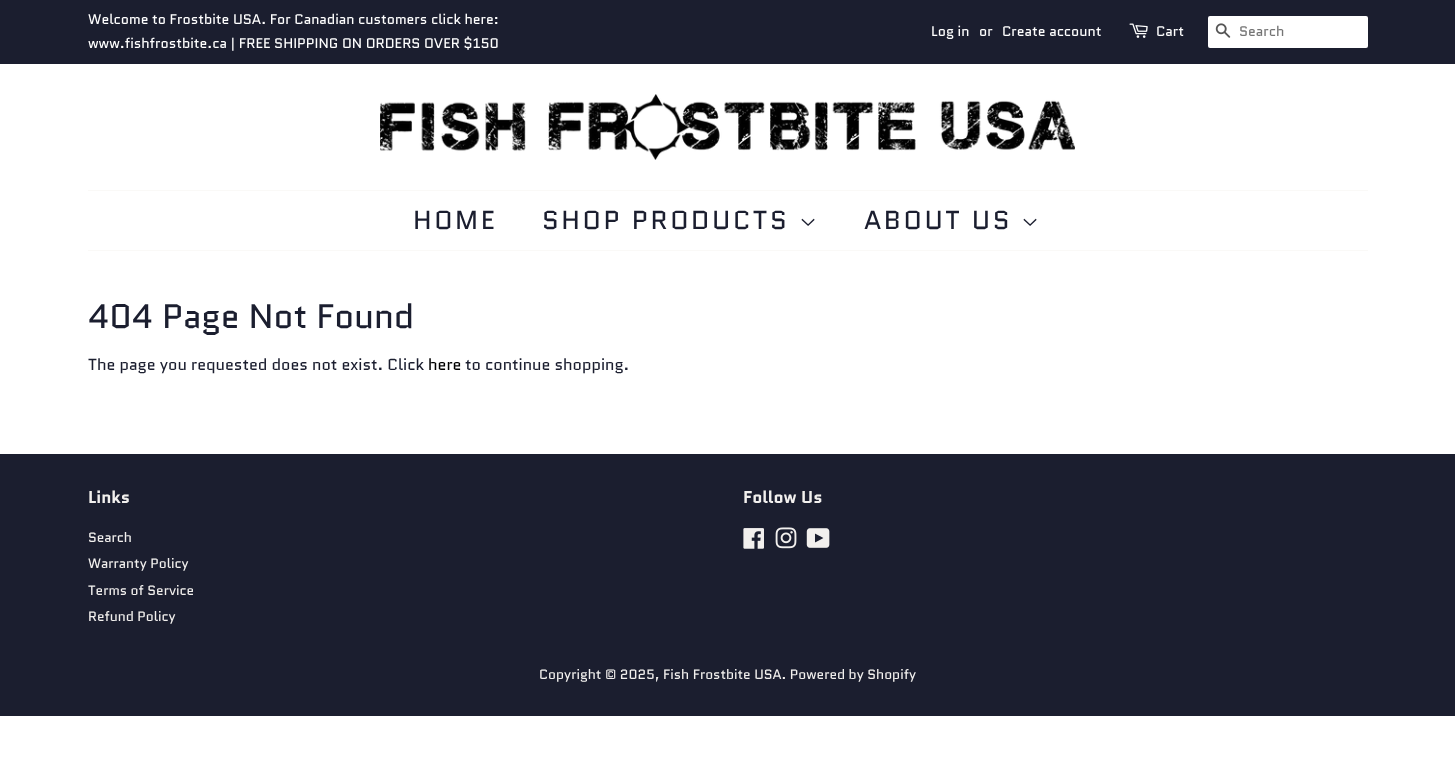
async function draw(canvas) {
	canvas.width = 1455;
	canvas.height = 768;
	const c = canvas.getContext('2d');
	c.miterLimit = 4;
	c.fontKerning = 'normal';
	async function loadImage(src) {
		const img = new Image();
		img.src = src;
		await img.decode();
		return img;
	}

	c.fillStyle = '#fff';
	c.fillRect(0, 0, 1455, 768);
	c.fillStyle = '#1b1e2f';
	c.fillRect(0, 0, 1455, 64);
	c.font = '14px Quantico';
	c.fillStyle = '#fff';
	for (const [text, x, y] of [
		['Welcome to Frostbite USA. For Canadian customers click here:', 88, 24],
		['www.fishfrostbite.ca | FREE SHIPPING ON ORDERS OVER $150', 88, 48],
		['Log in', 931, 36],
		['or', 979, 36],
		['Create account', 1002, 36],
	]) {
		c.fillText(text, x, y);
	}
	c.drawImage(await loadImage('img1.png'), 1129, 23, 19, 15);
	c.fillText('Cart', 1156, 36);
	c.beginPath();
	c.roundRect(1208, 16, 160, 32, 2);
	c.fill();
	c.drawImage(await loadImage('img2.png'), 1215, 23, 16, 15);
	c.fillStyle = '#757575';
	c.fillText('Search', 1239, 36);
	c.drawImage(await loadImage('img3.png'), 380, 94, 695, 66);
	c.fillStyle = '#faf9f7';
	c.fillRect(88, 190, 1280, 1);
	c.fillRect(88, 250, 1280, 1);
	c.letterSpacing = '2.6px';
	c.font = '26px Quantico';
	c.fillStyle = '#1b1e2f';
	c.fillText('HOME', 413, 229);
	c.fillText('SHOP PRODUCTS', 542, 229);
	c.drawImage(await loadImage('img4.png'), 801, 218, 14, 8);
	c.fillText('ABOUT US', 864, 229);
	c.drawImage(await loadImage('img4.png'), 1023, 218, 14, 8);
	c.letterSpacing = '0px';
	c.font = '34px Quantico';
	c.fillText('404 Page Not Found', 88, 328);
	c.font = '16px Quantico';
	c.fillText('The page you requested does not exist. Click', 88, 370);
	c.fillStyle = '#000';
	c.fillText('here', 428, 370);
	c.fillStyle = '#1b1e2f';
	c.fillText('to continue shopping.', 465, 370);
	c.fillRect(0, 454, 1455, 262);
	c.font = 'bold 17px Quantico';
	c.fillStyle = '#f2f0ee';
	c.fillText('Links', 88, 503);
	c.font = '13.6px Quantico';
	for (const [text, x, y] of [
		['Search', 88, 542],
		['Warranty Policy', 88, 568],
		['Terms of Service', 88, 595],
		['Refund Policy', 88, 621],
	]) {
		c.fillText(text, x, y);
	}
	c.font = 'bold 17px Quantico';
	c.fillText('Follow Us', 743, 503);
	c.drawImage(await loadImage('img5.png'), 743, 528, 21, 21);
	c.drawImage(await loadImage('img6.png'), 775, 527, 22, 22);
	c.drawImage(await loadImage('img7.png'), 806, 528, 24, 20);
	c.font = '13.6px Quantico';
	c.fillText('Copyright © 2025, Fish Frostbite USA. Powered by Shopify', 539, 679);
}

draw(document.querySelector('canvas'));
